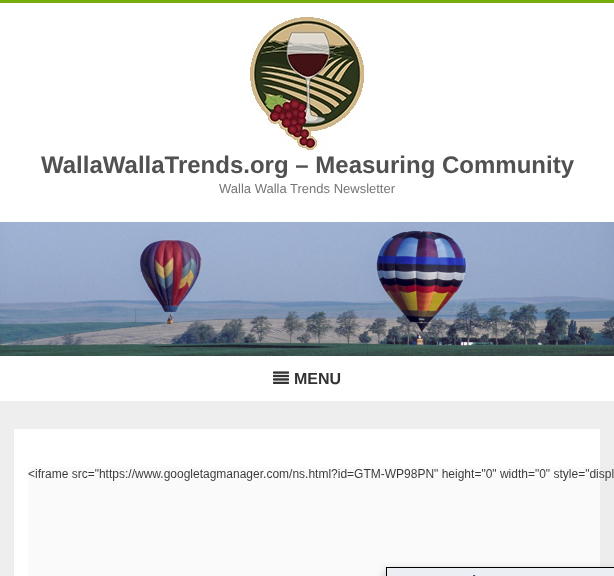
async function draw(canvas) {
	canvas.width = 614;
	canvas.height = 576;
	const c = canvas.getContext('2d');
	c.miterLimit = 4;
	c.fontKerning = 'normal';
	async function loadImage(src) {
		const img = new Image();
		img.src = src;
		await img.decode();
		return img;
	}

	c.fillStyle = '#eee';
	c.fillRect(0, 0, 614, 576);
	c.fillStyle = '#fff';
	c.fillRect(0, 3, 614, 398);
	c.fillStyle = '#77ad0a';
	c.fillRect(0, 0, 614, 3);
	c.drawImage(await loadImage('img1.png'), 250, 17, 114, 133);
	c.font = 'bold 24px Arimo';
	c.fillStyle = '#515151';
	c.fillText('WallaWallaTrends.org – Measuring Community', 41, 173);
	c.font = '13px Arimo';
	c.fillStyle = '#757575';
	c.fillText('Walla Walla Trends Newsletter', 219, 193);
	c.drawImage(await loadImage('img2.png'), 0, 222, 614, 134);
	c.drawImage(await loadImage('img3.png'), 273, 371, 16, 13);
	c.font = 'bold 16px Arimo';
	c.fillStyle = '#333';
	c.fillText('MENU', 294, 384);
	c.fillStyle = '#fff';
	c.fillRect(14, 429, 586, 147);
	c.drawImage(await loadImage('img4.png'), 28, 467, 586, 109);
}

draw(document.querySelector('canvas'));
